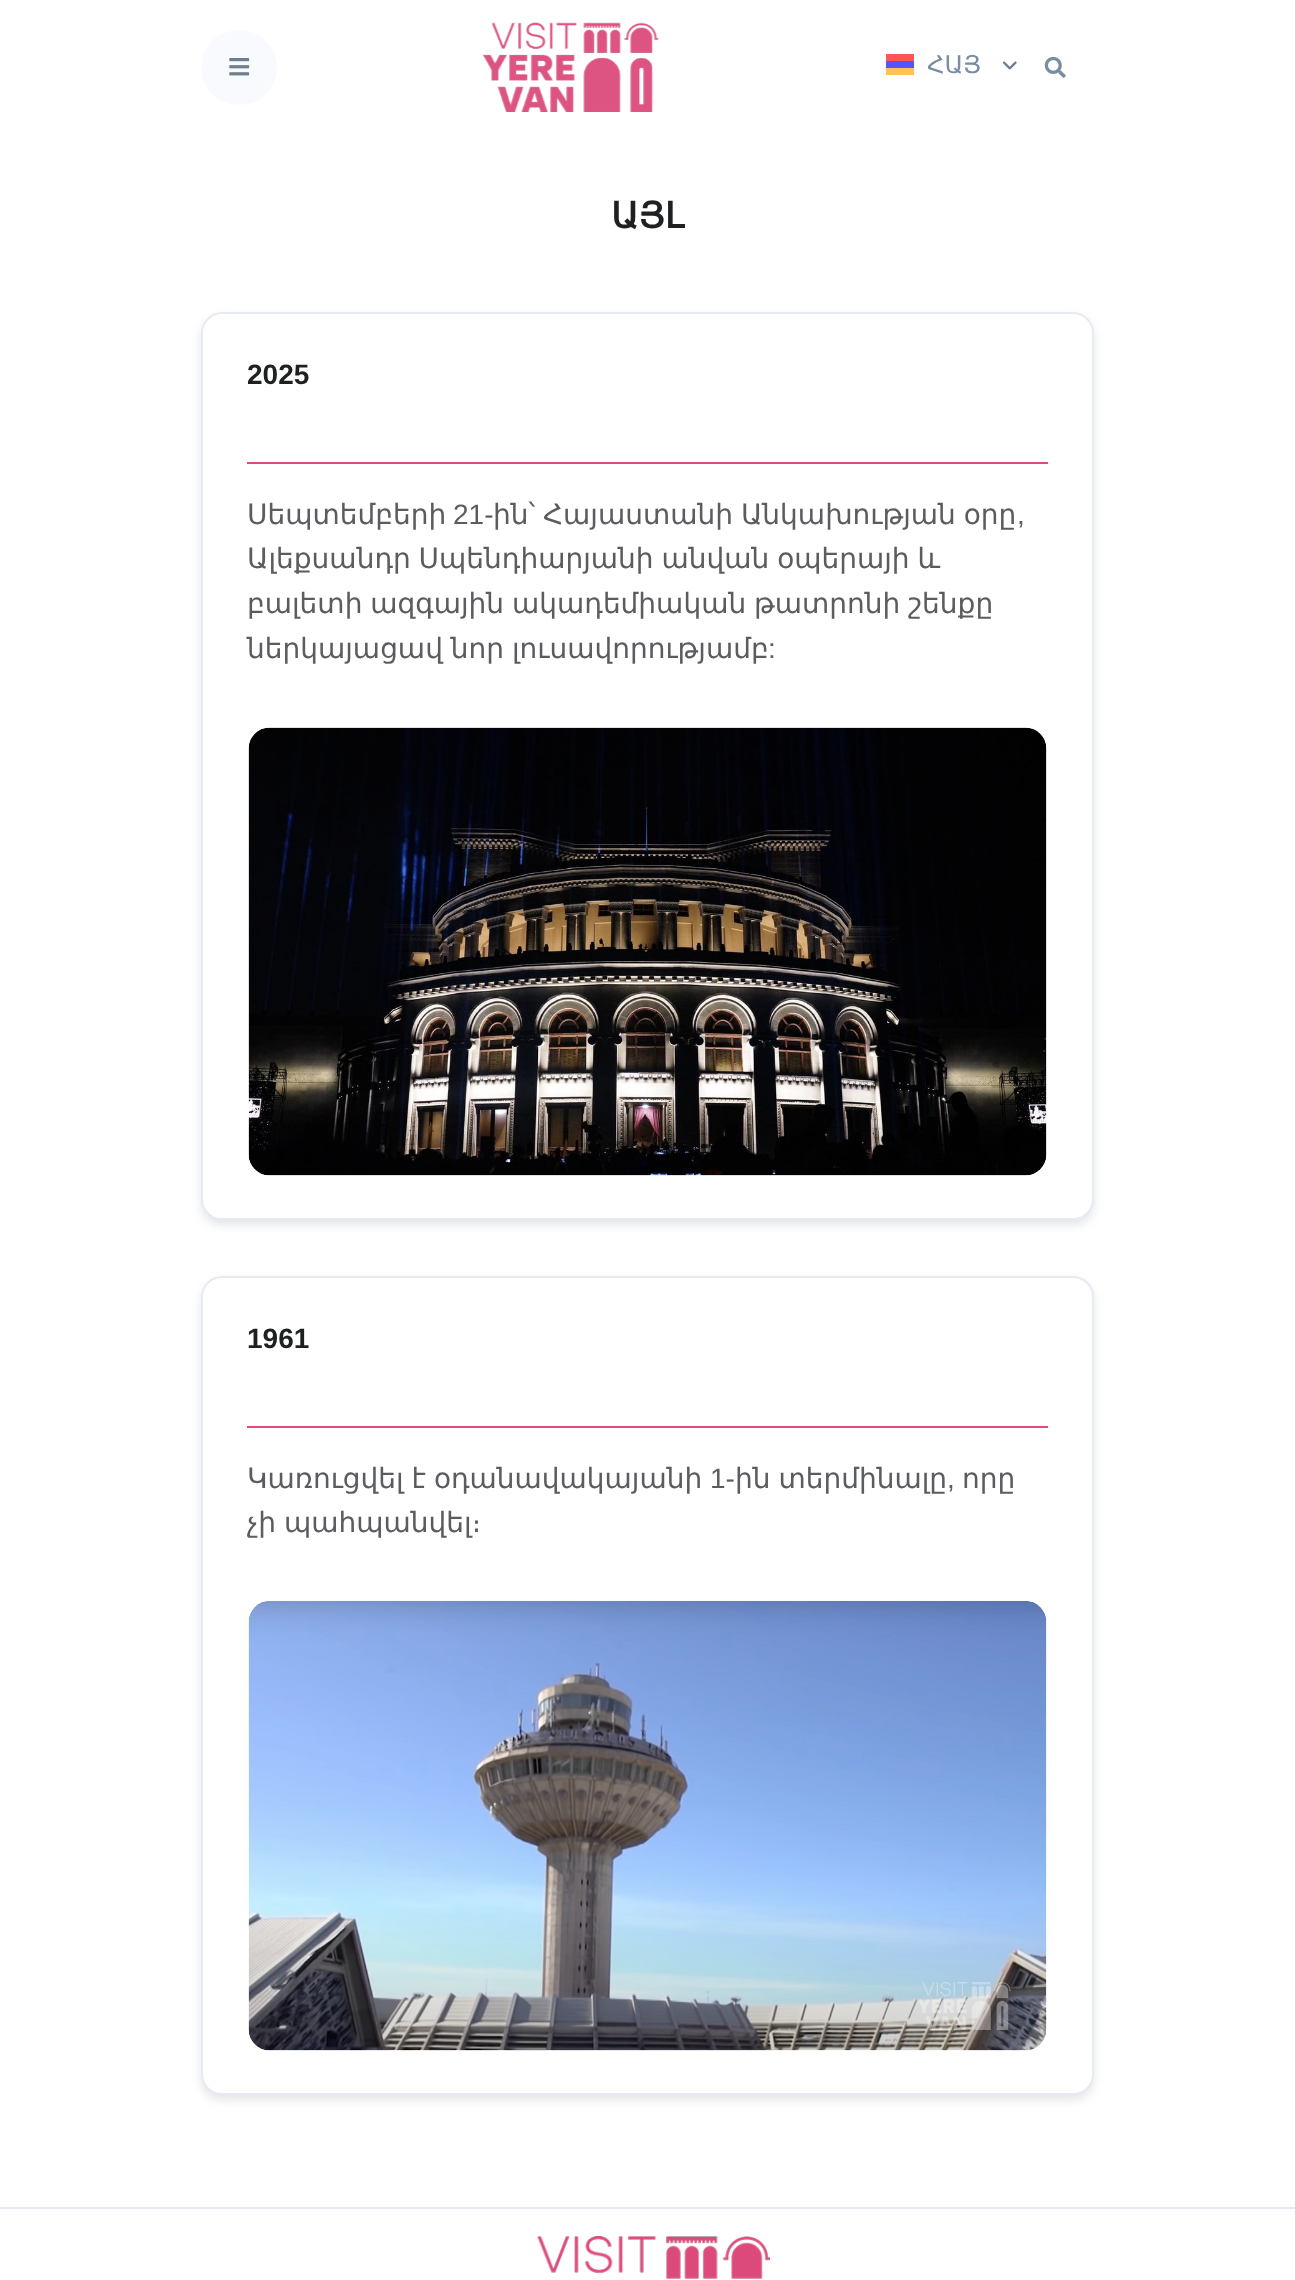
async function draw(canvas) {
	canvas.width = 1295;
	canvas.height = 2280;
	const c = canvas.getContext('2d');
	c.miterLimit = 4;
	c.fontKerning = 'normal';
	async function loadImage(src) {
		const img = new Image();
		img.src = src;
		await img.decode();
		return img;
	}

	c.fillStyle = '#fff';
	c.fillRect(0, 0, 1295, 2280);
	c.fillStyle = '#e7eaf3';
	c.fillRect(201, 49, 893, 2);
	c.fillStyle = '#fffffff2';
	c.fillRect(201, 49, 893, 2);
	c.fillStyle = '#f8fafd';
	c.beginPath();
	c.roundRect(201, 30, 76, 75, 37.5);
	c.fill();
	c.drawImage(await loadImage('img1.png'), 229, 58, 21, 18);
	c.drawImage(await loadImage('img2.png'), 482, 22, 177, 90);
	for (const [x, y, w, h, color] of [
		[886, 54, 28, 7, '#f55'],
		[886, 61, 28, 7, '#55f'],
		[886, 68, 28, 7, '#ffc355'],
	]) {
		c.fillStyle = color;
		c.fillRect(x, y, w, h);
	}
	c.font = '24.5px DejaVu Sans';
	c.fillStyle = '#788ca2';
	c.fillText('ՀԱՅ', 927, 73);
	c.drawImage(await loadImage('img3.png'), 1002, 61, 15, 9);
	c.drawImage(await loadImage('img4.png'), 1044, 56, 22, 22);
	c.font = 'bold 36px DejaVu Sans';
	c.fillStyle = '#1e2022';
	c.fillText('ԱՅԼ', 611, 228);
	c.fillStyle = '#8c98a440';
	c.filter = 'blur(5px)';
	c.beginPath();
	c.roundRect(201, 317, 893, 908, 21);
	c.fill();
	c.filter = 'none';
	c.fillStyle = '#fff';
	c.beginPath();
	c.roundRect(202, 313, 891, 906, 20);
	c.fill();
	c.strokeStyle = '#e7eaf3';
	c.lineWidth = 2;
	c.stroke();
	c.font = 'bold 28px Liberation Sans';
	c.fillStyle = '#1e2022';
	c.fillText('2025', 247, 384);
	c.fillStyle = '#dd4a7b';
	c.fillRect(247, 462, 801, 2);
	c.font = '28px DejaVu Sans';
	c.fillStyle = '#5a5c5f';
	c.fillText('Սեպտեմբերի', 247, 524);
	c.font = '28px Liberation Sans';
	c.fillText('21-', 453, 524);
	c.wordSpacing = '-1px';
	c.font = '28px DejaVu Sans';
	c.fillText('ին՝ Հայաստանի Անկախության օրը', 493, 524);
	c.wordSpacing = '0px';
	c.font = '28px Liberation Sans';
	c.fillText(',', 1017, 524);
	c.wordSpacing = '-1px';
	c.font = '28px DejaVu Sans';
	for (const [text, x, y] of [
		['Ալեքսանդր Սպենդիարյանի անվան օպերայի և', 247, 568],
		['բալետի ազգային ակադեմիական թատրոնի շենքը', 247, 613],
		['ներկայացավ նոր լուսավորությամբ', 247, 658],
	]) {
		c.fillText(text, x, y);
	}
	c.wordSpacing = '0px';
	c.font = '28px Liberation Sans';
	c.fillText(':', 768, 658);
	c.drawImage(await loadImage('img5.png'), 248, 727, 799, 449);
	c.fillStyle = '#8c98a440';
	c.filter = 'blur(5px)';
	c.beginPath();
	c.roundRect(201, 1281, 893, 819, 21);
	c.fill();
	c.filter = 'none';
	c.fillStyle = '#fff';
	c.beginPath();
	c.roundRect(202, 1277, 891, 817, 20);
	c.fill();
	c.stroke();
	c.font = 'bold 28px Liberation Sans';
	c.fillStyle = '#1e2022';
	c.fillText('1961', 247, 1348);
	c.fillStyle = '#dd4a7b';
	c.fillRect(247, 1426, 801, 2);
	c.wordSpacing = '-1px';
	c.font = '28px DejaVu Sans';
	c.fillStyle = '#5a5c5f';
	c.fillText('Կառուցվել է օդանավակայանի', 247, 1488);
	c.wordSpacing = '0px';
	c.font = '28px Liberation Sans';
	c.fillText('1-', 710, 1488);
	c.wordSpacing = '-1px';
	c.font = '28px DejaVu Sans';
	c.fillText('ին տերմինալը', 735, 1488);
	c.wordSpacing = '0px';
	c.font = '28px Liberation Sans';
	c.fillText(',', 947, 1488);
	c.font = '28px DejaVu Sans';
	c.fillText('որը', 962, 1488);
	c.wordSpacing = '-1px';
	c.fillText('չի պահպանվել։', 247, 1532);
	c.drawImage(await loadImage('img6.png'), 248, 1601, 799, 450);
	c.fillStyle = '#e7eaf3';
	c.fillRect(0, 2207, 1295, 2);
	c.drawImage(await loadImage('img7.png'), 537, 2236, 233, 43);
}

draw(document.querySelector('canvas'));
